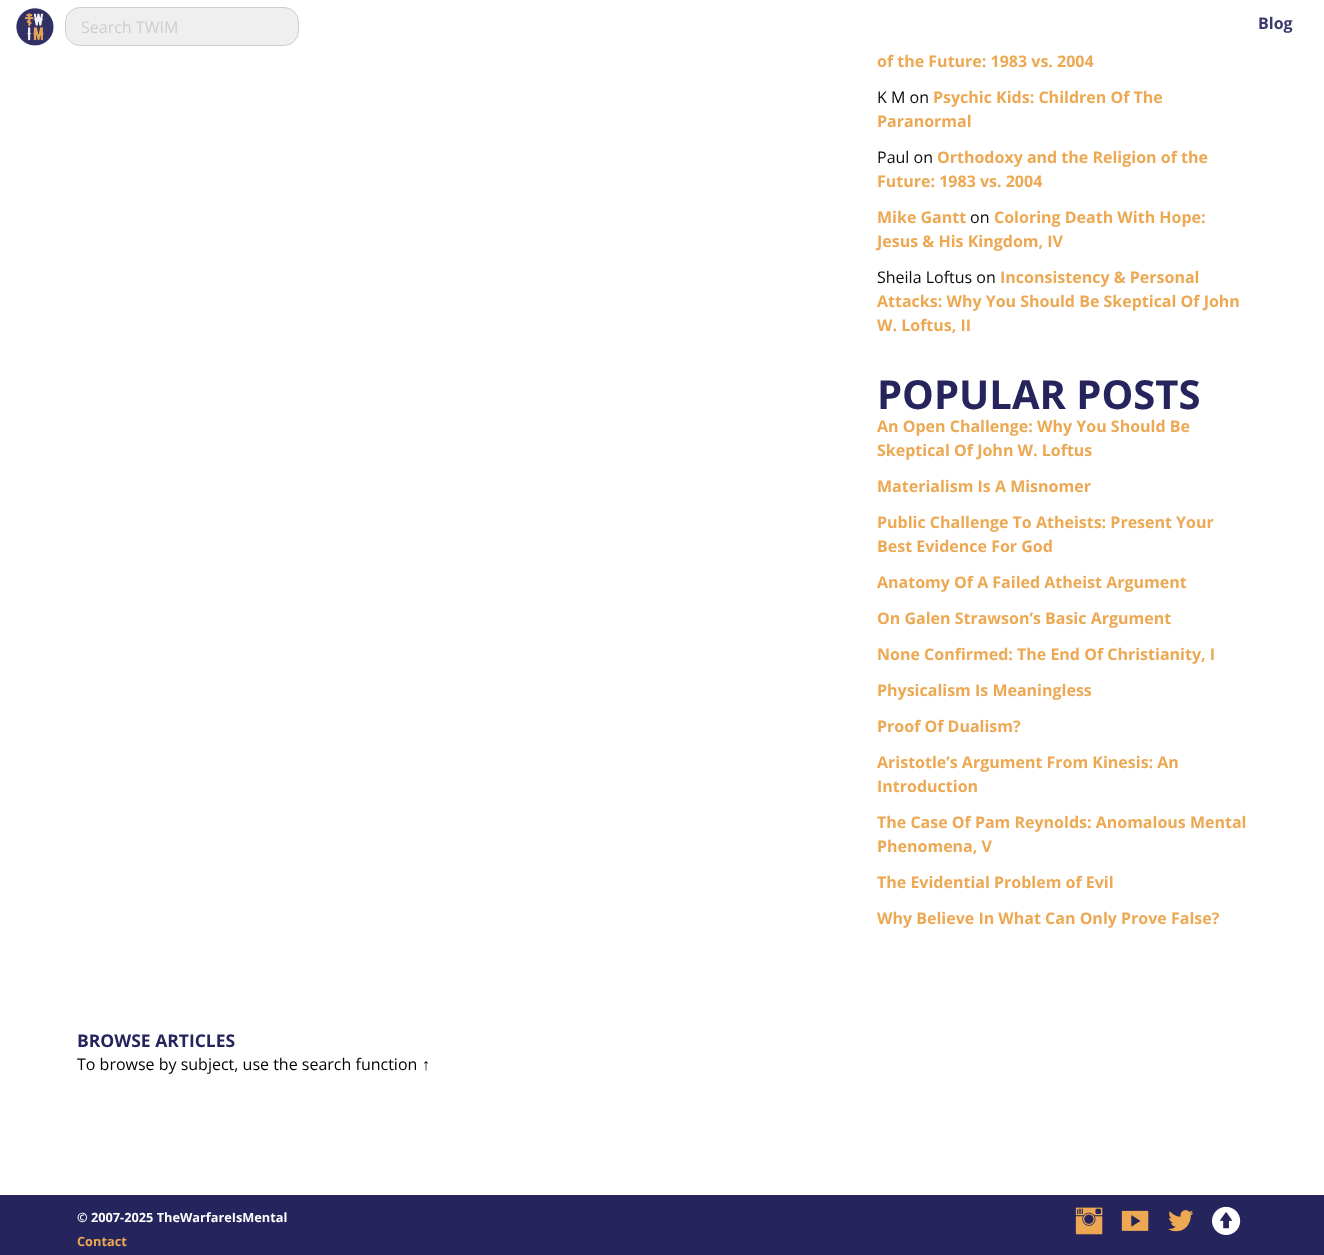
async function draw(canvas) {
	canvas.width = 1324;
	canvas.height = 1255;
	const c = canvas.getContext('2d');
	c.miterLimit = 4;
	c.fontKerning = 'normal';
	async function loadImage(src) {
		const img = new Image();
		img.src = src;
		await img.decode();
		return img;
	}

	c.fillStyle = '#fff';
	c.fillRect(0, 0, 1324, 1255);
	c.drawImage(await loadImage('img1.png'), 15, 7, 39, 39);
	c.fillStyle = '#efefef';
	c.beginPath();
	c.roundRect(65.5, 7.5, 233, 38, 14.5);
	c.fill();
	c.strokeStyle = '#cdcdcd';
	c.stroke();
	c.font = '16px Open Sans';
	c.fillStyle = '#cdcdcd';
	c.fillText('Search TWIM', 81, 33);
	c.font = 'bold 16px Open Sans';
	c.fillStyle = '#3b396d';
	c.fillText('Blog', 1258, 29);
	c.fillStyle = '#eca852';
	c.fillText('of the Future: 1983 vs. 2004', 877, 67);
	c.font = '16px Open Sans';
	c.fillStyle = '#0a0a0a';
	c.fillText('K M on', 877, 103);
	c.font = 'bold 16px Open Sans';
	c.fillStyle = '#eca852';
	c.fillText('Psychic Kids: Children Of The', 933, 103);
	c.fillText('Paranormal', 877, 127);
	c.font = '16px Open Sans';
	c.fillStyle = '#0a0a0a';
	c.fillText('Paul on', 877, 163);
	c.font = 'bold 16px Open Sans';
	c.fillStyle = '#eca852';
	for (const [text, x, y] of [
		['Orthodoxy and the Religion of the', 937, 163],
		['Future: 1983 vs. 2004', 877, 187],
		['Mike Gantt', 877, 223],
	]) {
		c.fillText(text, x, y);
	}
	c.font = '16px Open Sans';
	c.fillStyle = '#0a0a0a';
	c.fillText('on', 970, 223);
	c.font = 'bold 16px Open Sans';
	c.fillStyle = '#eca852';
	c.fillText('Coloring Death With Hope:', 994, 223);
	c.fillText('Jesus & His Kingdom, IV', 877, 247);
	c.font = '16px Open Sans';
	c.fillStyle = '#0a0a0a';
	c.fillText('Sheila Loftus on', 877, 283);
	c.font = 'bold 16px Open Sans';
	c.fillStyle = '#eca852';
	for (const [text, x, y] of [
		['Inconsistency & Personal', 1000, 283],
		['Attacks: Why You Should Be Skeptical Of John', 877, 307],
		['W. Loftus, II', 877, 331],
	]) {
		c.fillText(text, x, y);
	}
	c.font = 'bold 40px Open Sans';
	c.fillStyle = '#26245d';
	c.fillText('POPULAR POSTS', 877, 409);
	c.font = 'bold 16px Open Sans';
	c.fillStyle = '#eca852';
	for (const [text, x, y] of [
		['An Open Challenge: Why You Should Be', 877, 432],
		['Skeptical Of John W. Loftus', 877, 456],
		['Materialism Is A Misnomer', 877, 492],
		['Public Challenge To Atheists: Present Your', 877, 528],
		['Best Evidence For God', 877, 552],
		['Anatomy Of A Failed Atheist Argument', 877, 588],
		['On Galen Strawson’s Basic Argument', 877, 624],
		['None Confirmed: The End Of Christianity, I', 877, 660],
		['Physicalism Is Meaningless', 877, 696],
		['Proof Of Dualism?', 877, 732],
		['Aristotle’s Argument From Kinesis: An', 877, 768],
		['Introduction', 877, 792],
		['The Case Of Pam Reynolds: Anomalous Mental', 877, 828],
		['Phenomena, V', 877, 852],
		['The Evidential Problem of Evil', 877, 888],
		['Why Believe In What Can Only Prove False?', 877, 924],
	]) {
		c.fillText(text, x, y);
	}
	c.font = 'bold 17.5px Open Sans';
	c.fillStyle = '#26245d';
	c.fillText('BROWSE ARTICLES', 77, 1047);
	c.font = '16px Open Sans';
	c.fillStyle = '#000';
	c.fillText('To browse by subject, use the search function', 77, 1070);
	c.font = '16px Liberation Sans';
	c.fillText('↑', 422, 1070);
	c.fillStyle = '#26245d';
	c.fillRect(0, 1195, 1324, 60);
	c.font = 'bold 12.75px Open Sans';
	c.fillStyle = '#fff';
	c.fillText('© 2007-2025 TheWarfareIsMental', 77, 1222);
	c.fillStyle = '#eca852';
	c.fillText('Contact', 77, 1246);
	c.drawImage(await loadImage('img2.png'), 1075, 1207, 28, 28);
	c.drawImage(await loadImage('img3.png'), 1121, 1210, 28, 21);
	c.drawImage(await loadImage('img4.png'), 1168, 1210, 26, 22);
	c.drawImage(await loadImage('img5.png'), 1212, 1206, 29, 29);
}

draw(document.querySelector('canvas'));
